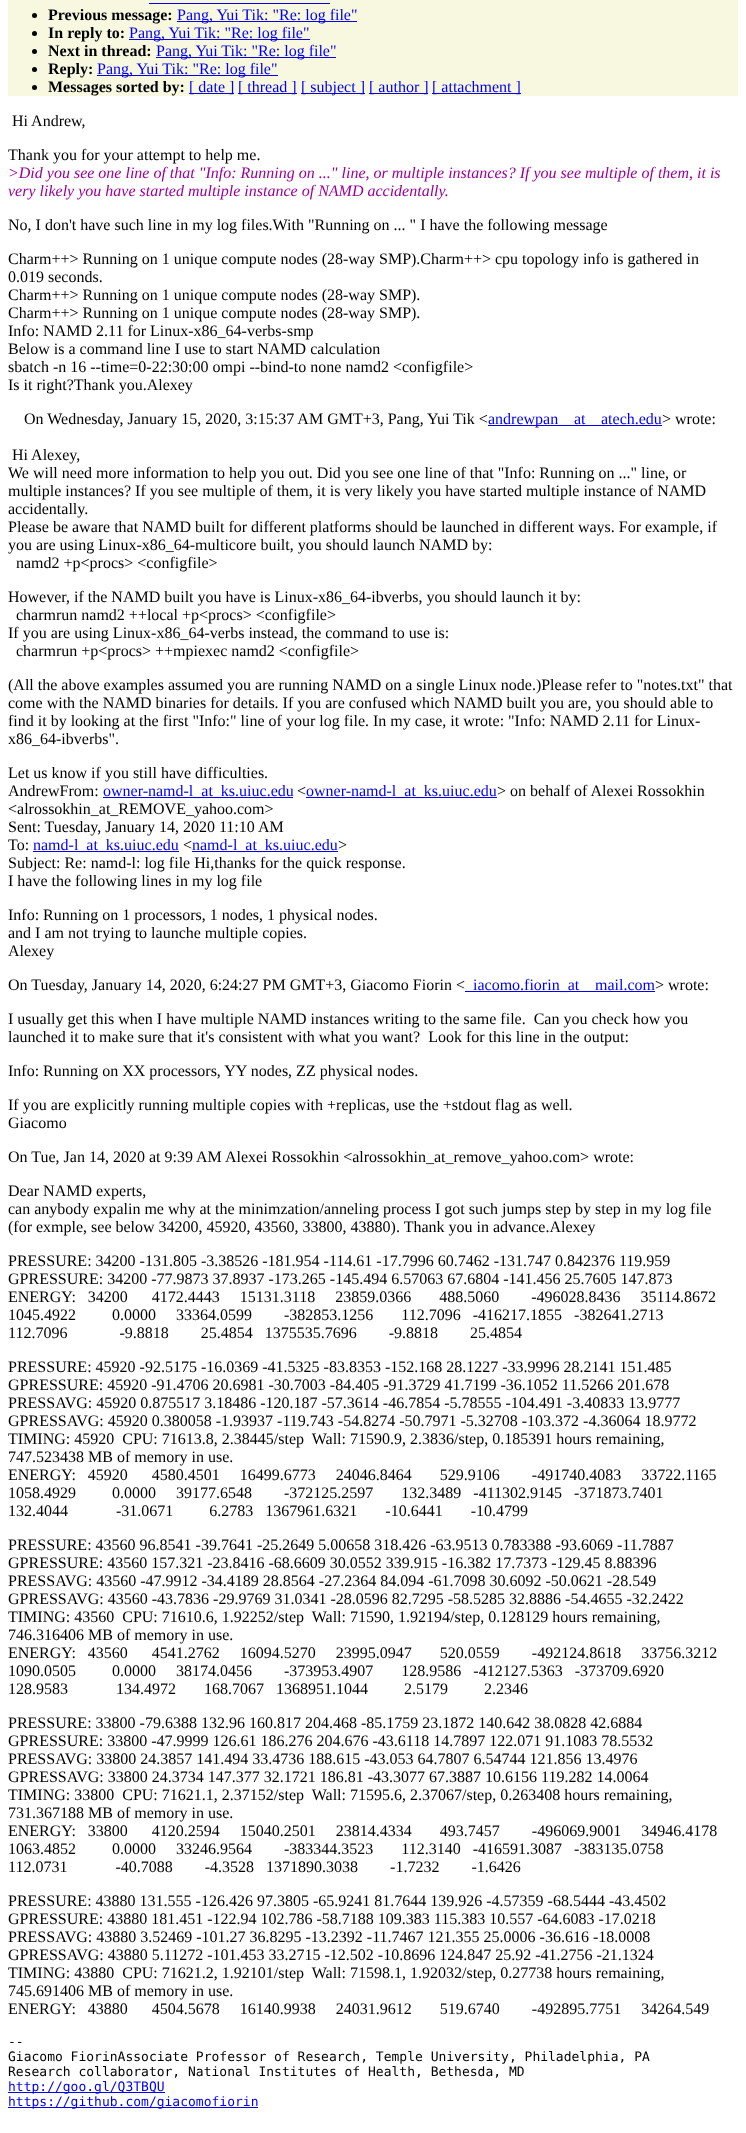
async function draw(canvas) {
	canvas.width = 746;
	canvas.height = 2133;
	const c = canvas.getContext('2d');
	c.miterLimit = 4;
	c.fontKerning = 'normal';

	c.fillStyle = '#fff';
	c.fillRect(0, 0, 746, 2133);
	c.fillStyle = '#f8f8e0';
	c.fillRect(8, 0, 730, 96);
	c.fillStyle = '#00e';
	c.fillRect(149, 3, 181, 1);
	c.fillStyle = '#000';
	c.beginPath();
	c.arc(34.5, 15.5, 2.5, 0, 2 * Math.PI);
	c.fill();
	c.font = 'bold 16px Liberation Serif';
	c.fillText('Previous message:', 48, 20);
	c.fillStyle = '#00e';
	c.fillRect(177, 21, 180, 1);
	c.font = '16px Liberation Serif';
	c.fillText('Pang, Yui Tik: "Re: log file"', 177, 20);
	c.fillStyle = '#000';
	c.beginPath();
	c.arc(34.5, 33.5, 2.5, 0, 2 * Math.PI);
	c.fill();
	c.font = 'bold 16px Liberation Serif';
	c.fillText('In reply to:', 48, 38);
	c.fillStyle = '#00e';
	c.fillRect(129, 39, 181, 1);
	c.font = '16px Liberation Serif';
	c.fillText('Pang, Yui Tik: "Re: log file"', 129, 38);
	c.fillStyle = '#000';
	c.beginPath();
	c.arc(34.5, 51.5, 2.5, 0, 2 * Math.PI);
	c.fill();
	c.font = 'bold 16px Liberation Serif';
	c.fillText('Next in thread:', 48, 56);
	c.fillStyle = '#00e';
	c.fillRect(156, 57, 180, 1);
	c.font = '16px Liberation Serif';
	c.fillText('Pang, Yui Tik: "Re: log file"', 156, 56);
	c.fillStyle = '#000';
	c.beginPath();
	c.arc(34.5, 69.5, 2.5, 0, 2 * Math.PI);
	c.fill();
	c.font = 'bold 16px Liberation Serif';
	c.fillText('Reply:', 48, 74);
	c.fillStyle = '#00e';
	c.fillRect(97, 75, 181, 1);
	c.font = '16px Liberation Serif';
	c.fillText('Pang, Yui Tik: "Re: log file"', 97, 74);
	c.fillStyle = '#000';
	c.beginPath();
	c.arc(34.5, 87.5, 2.5, 0, 2 * Math.PI);
	c.fill();
	c.font = 'bold 16px Liberation Serif';
	c.fillText('Messages sorted by:', 48, 92);
	c.fillStyle = '#00e';
	c.fillRect(189, 93, 45, 1);
	c.font = '16px Liberation Serif';
	c.fillText('[ date ]', 189, 92);
	c.fillRect(238, 93, 59, 1);
	c.fillText('[ thread ]', 238, 92);
	c.fillRect(301, 93, 64, 1);
	c.fillText('[ subject ]', 301, 92);
	c.fillRect(369, 93, 59, 1);
	c.fillText('[ author ]', 369, 92);
	c.fillRect(432, 93, 89, 1);
	c.fillText('[ attachment ]', 432, 92);
	c.fillStyle = '#000';
	c.fillText('Hi Andrew,', 12, 126);
	c.fillText('Thank you for your attempt to help me.', 8, 160);
	c.font = 'italic 16px Liberation Serif';
	c.fillStyle = '#909';
	c.fillText('>Did you see one line of that "Info: Running on ..." line, or multiple instances? If you see multiple of them, it is', 8, 178);
	c.fillText('very likely you have started multiple instance of NAMD accidentally.', 8, 196);
	c.font = '16px Liberation Serif';
	c.fillStyle = '#000';
	for (const [text, x, y] of [
		['No, I don\'t have such line in my log files.With "Running on ... " I have the following message', 8, 230],
		['Charm++> Running on 1 unique compute nodes (28-way SMP).Charm++> cpu topology info is gathered in', 8, 264],
		['0.019 seconds.', 8, 282],
		['Charm++> Running on 1 unique compute nodes (28-way SMP).', 8, 300],
		['Charm++> Running on 1 unique compute nodes (28-way SMP).', 8, 318],
		['Info: NAMD 2.11 for Linux-x86_64-verbs-smp', 8, 336],
		['Below is a command line I use to start NAMD calculation', 8, 354],
		['sbatch -n 16 --time=0-22:30:00 ompi --bind-to none namd2 <configfile>', 8, 372],
		['Is it right?Thank you.Alexey', 8, 390],
		['On Wednesday, January 15, 2020, 3:15:37 AM GMT+3, Pang, Yui Tik <', 24, 424],
	]) {
		c.fillText(text, x, y);
	}
	c.fillStyle = '#00e';
	c.fillRect(488, 425, 174, 1);
	for (const [text, x, y] of [
		['andrewpan', 488, 424],
		['at', 574, 424],
		['atech.edu', 601, 424],
	]) {
		c.fillText(text, x, y);
	}
	c.fillStyle = '#000';
	for (const [text, x, y] of [
		['> wrote:', 662, 424],
		['Hi Alexey,', 12, 460],
		['We will need more information to help you out. Did you see one line of that "Info: Running on ..." line, or', 8, 478],
		['multiple instances? If you see multiple of them, it is very likely you have started multiple instance of NAMD', 8, 496],
		['accidentally.', 8, 514],
		['Please be aware that NAMD built for different platforms should be launched in different ways. For example, if', 8, 532],
		['you are using Linux-x86_64-multicore built, you should launch NAMD by:', 8, 550],
		['namd2 +p<procs> <configfile>', 16, 568],
		['However, if the NAMD built you have is Linux-x86_64-ibverbs, you should launch it by:', 8, 602],
		['charmrun namd2 ++local +p<procs> <configfile>', 16, 620],
		['If you are using Linux-x86_64-verbs instead, the command to use is:', 8, 638],
		['charmrun +p<procs> ++mpiexec namd2 <configfile>', 16, 656],
		['(All the above examples assumed you are running NAMD on a single Linux node.)Please refer to "notes.txt" that', 8, 690],
		['come with the NAMD binaries for details. If you are confused which NAMD built you are, you should able to', 8, 708],
		['find it by looking at the first "Info:" line of your log file. In my case, it wrote: "Info: NAMD 2.11 for Linux-', 8, 726],
		['x86_64-ibverbs".', 8, 744],
		['Let us know if you still have difficulties.', 8, 778],
		['AndrewFrom:', 8, 796],
	]) {
		c.fillText(text, x, y);
	}
	c.fillStyle = '#00e';
	c.fillRect(103, 797, 190, 1);
	c.fillText('owner-namd-l_at_ks.uiuc.edu', 103, 796);
	c.fillStyle = '#000';
	c.fillText('<', 297, 796);
	c.fillStyle = '#00e';
	c.fillRect(306, 797, 191, 1);
	c.fillText('owner-namd-l_at_ks.uiuc.edu', 306, 796);
	c.fillStyle = '#000';
	for (const [text, x, y] of [
		['> on behalf of Alexei Rossokhin', 497, 796],
		['<alrossokhin_at_REMOVE_yahoo.com>', 8, 814],
		['Sent: Tuesday, January 14, 2020 11:10 AM', 8, 832],
		['To:', 8, 850],
	]) {
		c.fillText(text, x, y);
	}
	c.fillStyle = '#00e';
	c.fillRect(33, 851, 146, 1);
	c.fillText('namd-l_at_ks.uiuc.edu', 33, 850);
	c.fillStyle = '#000';
	c.fillText('<', 183, 850);
	c.fillStyle = '#00e';
	c.fillRect(192, 851, 146, 1);
	c.fillText('namd-l_at_ks.uiuc.edu', 192, 850);
	c.fillStyle = '#000';
	for (const [text, x, y] of [
		['>', 338, 850],
		['Subject: Re: namd-l: log file Hi,thanks for the quick response.', 8, 868],
		['I have the following lines in my log file', 8, 886],
		['Info: Running on 1 processors, 1 nodes, 1 physical nodes.', 8, 920],
		['and I am not trying to launche multiple copies.', 8, 938],
		['Alexey', 8, 956],
		['On Tuesday, January 14, 2020, 6:24:27 PM GMT+3, Giacomo Fiorin <', 8, 990],
	]) {
		c.fillText(text, x, y);
	}
	c.fillStyle = '#00e';
	c.fillRect(465, 991, 190, 1);
	c.fillText('iacomo.fiorin_at', 473, 990);
	c.fillText('mail.com', 595, 990);
	c.fillStyle = '#000';
	for (const [text, x, y] of [
		['> wrote:', 655, 990],
		['I usually get this when I have multiple NAMD instances writing to the same file.  Can you check how you', 8, 1024],
		['launched it to make sure that it\'s consistent with what you want?  Look for this line in the output:', 8, 1042],
		['Info: Running on XX processors, YY nodes, ZZ physical nodes.', 8, 1076],
		['If you are explicitly running multiple copies with +replicas, use the +stdout flag as well.', 8, 1110],
		['Giacomo', 8, 1128],
		['On Tue, Jan 14, 2020 at 9:39 AM Alexei Rossokhin <alrossokhin_at_remove_yahoo.com> wrote:', 8, 1162],
		['Dear NAMD experts,', 8, 1196],
		['can anybody expalin me why at the minimzation/anneling process I got such jumps step by step in my log file', 8, 1214],
		['(for exmple, see below 34200, 45920, 43560, 33800, 43880). Thank you in advance.Alexey', 8, 1232],
		['PRESSURE: 34200 -131.805 -3.38526 -181.954 -114.61 -17.7996 60.7462 -131.747 0.842376 119.959', 8, 1266],
		['GPRESSURE: 34200 -77.9873 37.8937 -173.265 -145.494 6.57063 67.6804 -141.456 25.7605 147.873', 8, 1284],
		['ENERGY:   34200      4172.4443     15131.3118     23859.0366       488.5060        -496028.8436     35114.8672', 8, 1302],
		['1045.4922         0.0000     33364.0599        -382853.1256       112.7096   -416217.1855   -382641.2713', 8, 1320],
		['112.7096             -9.8818        25.4854   1375535.7696        -9.8818        25.4854', 8, 1338],
		['PRESSURE: 45920 -92.5175 -16.0369 -41.5325 -83.8353 -152.168 28.1227 -33.9996 28.2141 151.485', 8, 1372],
		['GPRESSURE: 45920 -91.4706 20.6981 -30.7003 -84.405 -91.3729 41.7199 -36.1052 11.5266 201.678', 8, 1390],
		['PRESSAVG: 45920 0.875517 3.18486 -120.187 -57.3614 -46.7854 -5.78555 -104.491 -3.40833 13.9777', 8, 1408],
		['GPRESSAVG: 45920 0.380058 -1.93937 -119.743 -54.8274 -50.7971 -5.32708 -103.372 -4.36064 18.9772', 8, 1426],
		['TIMING: 45920  CPU: 71613.8, 2.38445/step  Wall: 71590.9, 2.3836/step, 0.185391 hours remaining,', 8, 1444],
		['747.523438 MB of memory in use.', 8, 1462],
		['ENERGY:   45920      4580.4501     16499.6773     24046.8464       529.9106        -491740.4083     33722.1165', 8, 1480],
		['1058.4929         0.0000     39177.6548        -372125.2597       132.3489   -411302.9145   -371873.7401', 8, 1498],
		['132.4044            -31.0671         6.2783   1367961.6321       -10.6441       -10.4799', 8, 1516],
		['PRESSURE: 43560 96.8541 -39.7641 -25.2649 5.00658 318.426 -63.9513 0.783388 -93.6069 -11.7887', 8, 1550],
		['GPRESSURE: 43560 157.321 -23.8416 -68.6609 30.0552 339.915 -16.382 17.7373 -129.45 8.88396', 8, 1568],
		['PRESSAVG: 43560 -47.9912 -34.4189 28.8564 -27.2364 84.094 -61.7098 30.6092 -50.0621 -28.549', 8, 1586],
		['GPRESSAVG: 43560 -43.7836 -29.9769 31.0341 -28.0596 82.7295 -58.5285 32.8886 -54.4655 -32.2422', 8, 1604],
		['TIMING: 43560  CPU: 71610.6, 1.92252/step  Wall: 71590, 1.92194/step, 0.128129 hours remaining,', 8, 1622],
		['746.316406 MB of memory in use.', 8, 1640],
		['ENERGY:   43560      4541.2762     16094.5270     23995.0947       520.0559        -492124.8618     33756.3212', 8, 1658],
		['1090.0505         0.0000     38174.0456        -373953.4907       128.9586   -412127.5363   -373709.6920', 8, 1676],
		['128.9583            134.4972       168.7067   1368951.1044         2.5179         2.2346', 8, 1694],
		['PRESSURE: 33800 -79.6388 132.96 160.817 204.468 -85.1759 23.1872 140.642 38.0828 42.6884', 8, 1728],
		['GPRESSURE: 33800 -47.9999 126.61 186.276 204.676 -43.6118 14.7897 122.071 91.1083 78.5532', 8, 1746],
		['PRESSAVG: 33800 24.3857 141.494 33.4736 188.615 -43.053 64.7807 6.54744 121.856 13.4976', 8, 1764],
		['GPRESSAVG: 33800 24.3734 147.377 32.1721 186.81 -43.3077 67.3887 10.6156 119.282 14.0064', 8, 1782],
		['TIMING: 33800  CPU: 71621.1, 2.37152/step  Wall: 71595.6, 2.37067/step, 0.263408 hours remaining,', 8, 1800],
		['731.367188 MB of memory in use.', 8, 1818],
		['ENERGY:   33800      4120.2594     15040.2501     23814.4334       493.7457        -496069.9001     34946.4178', 8, 1836],
		['1063.4852         0.0000     33246.9564        -383344.3523       112.3140   -416591.3087   -383135.0758', 8, 1854],
		['112.0731            -40.7088        -4.3528   1371890.3038        -1.7232        -1.6426', 8, 1872],
		['PRESSURE: 43880 131.555 -126.426 97.3805 -65.9241 81.7644 139.926 -4.57359 -68.5444 -43.4502', 8, 1906],
		['GPRESSURE: 43880 181.451 -122.94 102.786 -58.7188 109.383 115.383 10.557 -64.6083 -17.0218', 8, 1924],
		['PRESSAVG: 43880 3.52469 -101.27 36.8295 -13.2392 -11.7467 121.355 25.0006 -36.616 -18.0008', 8, 1942],
		['GPRESSAVG: 43880 5.11272 -101.453 33.2715 -12.502 -10.8696 124.847 25.92 -41.2756 -21.1324', 8, 1960],
		['TIMING: 43880  CPU: 71621.2, 1.92101/step  Wall: 71598.1, 1.92032/step, 0.27738 hours remaining,', 8, 1978],
		['745.691406 MB of memory in use.', 8, 1996],
		['ENERGY:   43880      4504.5678     16140.9938     24031.9612       519.6740        -492895.7751     34264.549', 8, 2014],
	]) {
		c.fillText(text, x, y);
	}
	c.font = '13px DejaVu Sans Mono';
	for (const [text, x, y] of [
		['--', 8, 2046],
		['Giacomo FiorinAssociate Professor of Research, Temple University, Philadelphia, PA', 8, 2061],
		['Research collaborator, National Institutes of Health, Bethesda, MD', 8, 2076],
	]) {
		c.fillText(text, x, y);
	}
	c.fillStyle = '#00e';
	c.fillRect(8, 2092, 157, 1);
	c.fillText('http://goo.gl/Q3TBQU', 8, 2091);
	c.fillRect(8, 2107, 250, 1);
	c.fillText('https://github.com/giacomofiorin', 8, 2106);
}

draw(document.querySelector('canvas'));
